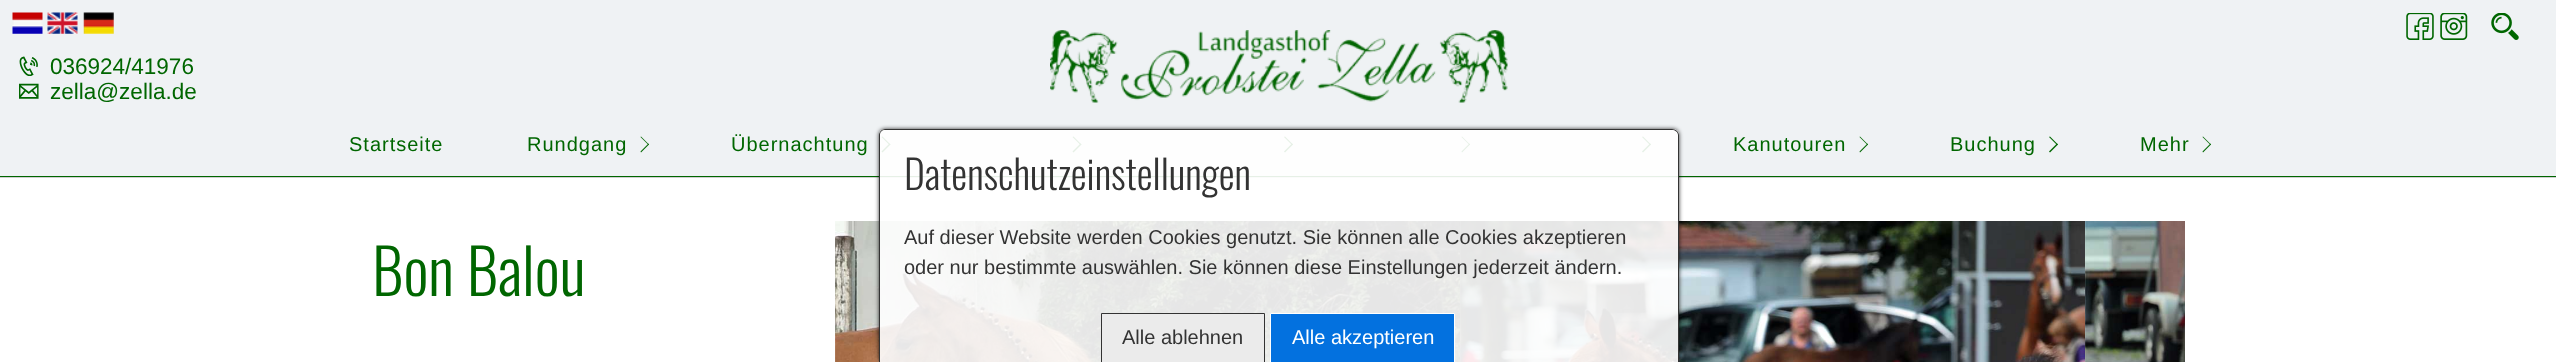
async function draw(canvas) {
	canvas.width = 2556;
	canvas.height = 362;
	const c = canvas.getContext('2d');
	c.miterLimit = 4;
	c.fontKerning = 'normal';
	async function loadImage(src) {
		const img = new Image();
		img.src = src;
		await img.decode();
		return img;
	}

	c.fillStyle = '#d0d0d0';
	c.fillRect(0, 0, 2556, 362);
	c.fillStyle = '#eff2f4';
	c.fillRect(0, 0, 2556, 176);
	c.drawImage(await loadImage('img1.png'), 12, 12, 31, 22);
	c.drawImage(await loadImage('img2.png'), 47, 12, 31, 22);
	c.drawImage(await loadImage('img3.png'), 83, 12, 31, 22);
	c.drawImage(await loadImage('img4.png'), 2406, 13, 28, 27);
	c.drawImage(await loadImage('img5.png'), 2440, 13, 28, 27);
	c.drawImage(await loadImage('img6.png'), 2491, 13, 28, 27);
	c.drawImage(await loadImage('img7.png'), 19, 56, 19, 20);
	c.font = '22.5px Liberation Sans';
	c.fillStyle = '#060';
	c.fillText('036924/41976', 50, 74);
	c.drawImage(await loadImage('img8.png'), 19, 83, 20, 16);
	c.fillText('zella@zella.de', 50, 99);
	c.fillRect(0, 176, 2556, 1);
	c.drawImage(await loadImage('img9.png'), 1050, 30, 458, 73);
	c.letterSpacing = '1px';
	c.font = '20px Liberation Sans';
	c.fillText('Startseite', 349, 151);
	c.fillText('Rundgang', 527, 151);
	c.beginPath();
	c.moveTo(641, 136.5);
	c.lineTo(649, 144.5);
	c.lineTo(648.5, 145);
	c.lineTo(640.5, 137);
	c.closePath();
	c.fill();
	c.beginPath();
	c.moveTo(648.5, 143.5);
	c.lineTo(649, 144.5);
	c.lineTo(641, 152.5);
	c.lineTo(640.5, 151.5);
	c.closePath();
	c.fill();
	c.fillText('Übernachtung', 731, 151);
	c.beginPath();
	c.moveTo(882.5, 136.5);
	c.lineTo(890.5, 144.5);
	c.lineTo(889.5, 145);
	c.lineTo(881.5, 137);
	c.closePath();
	c.fill();
	c.beginPath();
	c.moveTo(889.5, 143.5);
	c.lineTo(890.5, 144.5);
	c.lineTo(882.5, 152.5);
	c.lineTo(881.5, 151.5);
	c.closePath();
	c.fill();
	c.beginPath();
	c.moveTo(1073.5, 136.5);
	c.lineTo(1081.5, 144.5);
	c.lineTo(1080.5, 145);
	c.lineTo(1072.5, 137);
	c.closePath();
	c.fill();
	c.beginPath();
	c.moveTo(1080.5, 143.5);
	c.lineTo(1081.5, 144.5);
	c.lineTo(1073.5, 152.5);
	c.lineTo(1072.5, 151.5);
	c.closePath();
	c.fill();
	c.beginPath();
	c.moveTo(1285, 136.5);
	c.lineTo(1293, 144.5);
	c.lineTo(1292, 145);
	c.lineTo(1284, 137);
	c.closePath();
	c.fill();
	c.beginPath();
	c.moveTo(1292, 143.5);
	c.lineTo(1293, 144.5);
	c.lineTo(1285, 152.5);
	c.lineTo(1284, 151.5);
	c.closePath();
	c.fill();
	c.beginPath();
	c.moveTo(1462, 136.5);
	c.lineTo(1470, 144.5);
	c.lineTo(1469.5, 145);
	c.lineTo(1461.5, 137);
	c.closePath();
	c.fill();
	c.beginPath();
	c.moveTo(1469.5, 143.5);
	c.lineTo(1470, 144.5);
	c.lineTo(1462, 152.5);
	c.lineTo(1461.5, 151.5);
	c.closePath();
	c.fill();
	c.beginPath();
	c.moveTo(1643, 136.5);
	c.lineTo(1651, 144.5);
	c.lineTo(1650, 145);
	c.lineTo(1642, 137);
	c.closePath();
	c.fill();
	c.beginPath();
	c.moveTo(1650, 143.5);
	c.lineTo(1651, 144.5);
	c.lineTo(1643, 152.5);
	c.lineTo(1642, 151.5);
	c.closePath();
	c.fill();
	c.fillText('Kanutouren', 1733, 151);
	c.beginPath();
	c.moveTo(1860, 136.5);
	c.lineTo(1868, 144.5);
	c.lineTo(1867.5, 145);
	c.lineTo(1859.5, 137);
	c.closePath();
	c.fill();
	c.beginPath();
	c.moveTo(1867.5, 143.5);
	c.lineTo(1868, 144.5);
	c.lineTo(1860, 152.5);
	c.lineTo(1859.5, 151.5);
	c.closePath();
	c.fill();
	c.fillText('Buchung', 1950, 151);
	c.beginPath();
	c.moveTo(2050, 136.5);
	c.lineTo(2058, 144.5);
	c.lineTo(2057, 145);
	c.lineTo(2049, 137);
	c.closePath();
	c.fill();
	c.beginPath();
	c.moveTo(2057, 143.5);
	c.lineTo(2058, 144.5);
	c.lineTo(2050, 152.5);
	c.lineTo(2049, 151.5);
	c.closePath();
	c.fill();
	c.fillText('Mehr', 2140, 151);
	c.beginPath();
	c.moveTo(2203, 136.5);
	c.lineTo(2211, 144.5);
	c.lineTo(2210.5, 145);
	c.lineTo(2202.5, 137);
	c.closePath();
	c.fill();
	c.beginPath();
	c.moveTo(2210.5, 143.5);
	c.lineTo(2211, 144.5);
	c.lineTo(2203, 152.5);
	c.lineTo(2202.5, 151.5);
	c.closePath();
	c.fill();
	c.fillStyle = '#fff';
	c.fillRect(0, 178, 2556, 184);
	c.letterSpacing = '0px';
	c.font = '300 62.5px Oswald';
	c.fillStyle = '#060';
	c.fillText('Bon Balou', 372, 296);
	c.drawImage(await loadImage('img10.png'), 835, 221, 625, 141);
	c.drawImage(await loadImage('img11.png'), 1460, 221, 625, 141);
	c.drawImage(await loadImage('img12.png'), 2085, 221, 100, 141);
	c.save();
	c.beginPath();
	c.moveTo(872, 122);
	c.lineTo(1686, 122);
	c.lineTo(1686, 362);
	c.lineTo(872, 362);
	c.closePath();
	c.moveTo(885, 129);
	c.lineTo(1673, 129);
	c.bezierCurveTo(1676.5, 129, 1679, 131.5, 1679, 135);
	c.lineTo(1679, 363);
	c.lineTo(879, 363);
	c.lineTo(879, 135);
	c.bezierCurveTo(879, 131.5, 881.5, 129, 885, 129);
	c.closePath();
	c.clip('evenodd');
	c.fillStyle = '#000000cc';
	c.filter = 'blur(2px)';
	c.beginPath();
	c.roundRect(879, 129, 800, 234, 6);
	c.fill();
	c.filter = 'none';
	c.restore();
	c.fillStyle = '#ffffffe6';
	c.beginPath();
	c.moveTo(885, 129);
	c.lineTo(1673, 129);
	c.bezierCurveTo(1676.5, 129, 1679, 131.5, 1679, 135);
	c.lineTo(1679, 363);
	c.lineTo(879, 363);
	c.lineTo(879, 135);
	c.bezierCurveTo(879, 131.5, 881.5, 129, 885, 129);
	c.closePath();
	c.fill();
	c.fillStyle = '#333';
	c.beginPath();
	c.moveTo(885, 129);
	c.lineTo(1672, 129);
	c.bezierCurveTo(1676, 129, 1679, 132, 1679, 135);
	c.lineTo(1679, 362);
	c.lineTo(879, 362);
	c.lineTo(879, 135);
	c.bezierCurveTo(879, 132, 882, 129, 885, 129);
	c.closePath();
	c.moveTo(885, 130);
	c.lineTo(1672, 130);
	c.bezierCurveTo(1675, 130, 1678, 132, 1678, 135);
	c.lineTo(1678, 362);
	c.lineTo(880, 362);
	c.lineTo(880, 135);
	c.bezierCurveTo(880, 132, 882, 130, 885, 130);
	c.closePath();
	c.fill('evenodd');
	c.font = '300 40px Oswald';
	c.fillText('Datenschutzeinstellungen', 904, 190);
	c.font = '20px Liberation Sans';
	c.fillText('Auf dieser Website werden Cookies genutzt. Sie können alle Cookies akzeptieren', 904, 244);
	c.fillText('oder nur bestimmte auswählen. Sie können diese Einstellungen jederzeit ändern.', 904, 274);
	c.fillStyle = '#ebebeb';
	c.beginPath();
	c.rect(1101.5, 313.5, 163, 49);
	c.fill();
	c.strokeStyle = '#333';
	c.stroke();
	c.fillStyle = '#333';
	c.fillText('Alle ablehnen', 1122, 344);
	c.fillStyle = '#0371df';
	c.beginPath();
	c.rect(1270.5, 313.5, 184, 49);
	c.fill();
	c.strokeStyle = '#fff';
	c.stroke();
	c.fillStyle = '#fff';
	c.fillText('Alle akzeptieren', 1292, 344);
}

draw(document.querySelector('canvas'));
